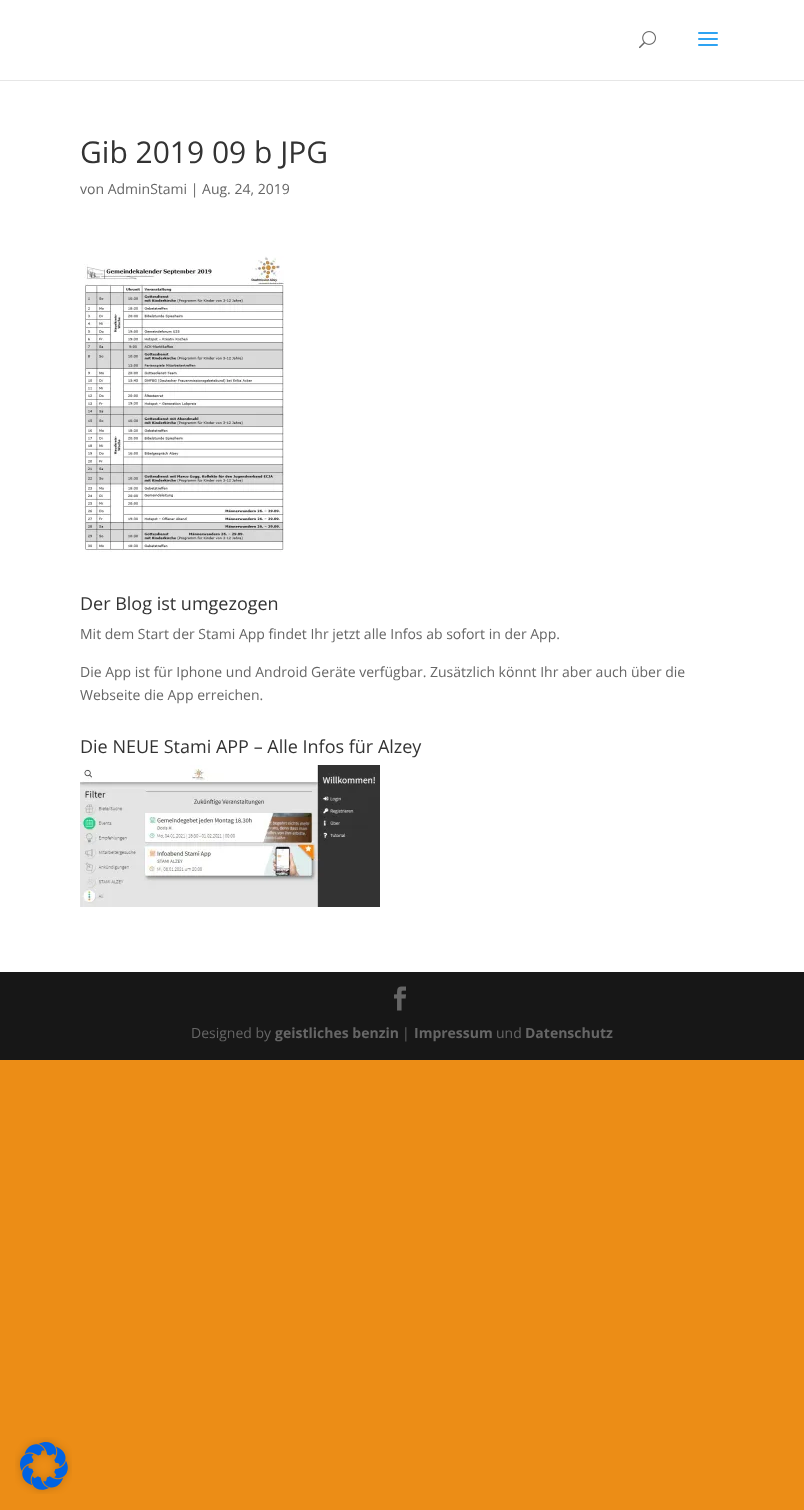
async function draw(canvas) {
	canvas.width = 804;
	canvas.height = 1510;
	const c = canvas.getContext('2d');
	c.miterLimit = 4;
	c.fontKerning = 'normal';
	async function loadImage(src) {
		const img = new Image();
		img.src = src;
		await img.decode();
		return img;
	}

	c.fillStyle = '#ec8d16';
	c.fillRect(0, 0, 804, 1510);
	c.fillStyle = '#e6e6e6';
	c.fillRect(0, 80, 804, 1);
	c.fillStyle = '#fff';
	c.fillRect(0, 0, 804, 80);
	c.drawImage(await loadImage('img1.png'), 639, 31, 17, 18);
	c.drawImage(await loadImage('img2.png'), 698, 32, 20, 14);
	c.fillRect(0, 81, 804, 891);
	c.font = '30px Open Sans';
	c.fillStyle = '#333';
	c.fillText('Gib 2019 09 b JPG', 80, 163);
	c.font = '14px Open Sans';
	c.fillStyle = '#666';
	c.fillText('von AdminStami | Aug. 24, 2019', 80, 194);
	c.drawImage(await loadImage('img3.png'), 84, 256, 200, 296);
	c.font = '18px Open Sans';
	c.fillStyle = '#333';
	c.fillText('Der Blog ist umgezogen', 80, 610);
	c.font = '14px Open Sans';
	c.fillStyle = '#666';
	for (const [text, x, y] of [
		['Mit dem Start der Stami App findet Ihr jetzt alle Infos ab sofort in der App.', 80, 639],
		['Die App ist für Iphone und Android Geräte verfügbar. Zusätzlich könnt Ihr aber auch über die', 80, 677],
		['Webseite die App erreichen.', 80, 700],
	]) {
		c.fillText(text, x, y);
	}
	c.font = '18px Open Sans';
	c.fillStyle = '#333';
	c.fillText('Die NEUE Stami APP – Alle Infos für Alzey', 80, 753);
	c.drawImage(await loadImage('img4.png'), 80, 765, 300, 142);
	c.fillStyle = '#171717';
	c.fillRect(0, 972, 804, 88);
	c.drawImage(await loadImage('img5.png'), 394, 986, 12, 25);
	c.font = '14px Open Sans';
	c.fillStyle = '#666';
	c.fillText('Designed by', 191, 1038);
	c.font = 'bold 14px Open Sans';
	c.fillText('geistliches benzin', 275, 1038);
	c.font = '14px Open Sans';
	c.fillText('|', 402, 1038);
	c.font = 'bold 14px Open Sans';
	c.fillText('Impressum', 414, 1038);
	c.font = '14px Open Sans';
	c.fillText('und', 496, 1038);
	c.font = 'bold 14px Open Sans';
	c.fillText('Datenschutz', 525, 1038);
	c.drawImage(await loadImage('img6.png'), 15, 1437, 57, 57);
}

draw(document.querySelector('canvas'));
